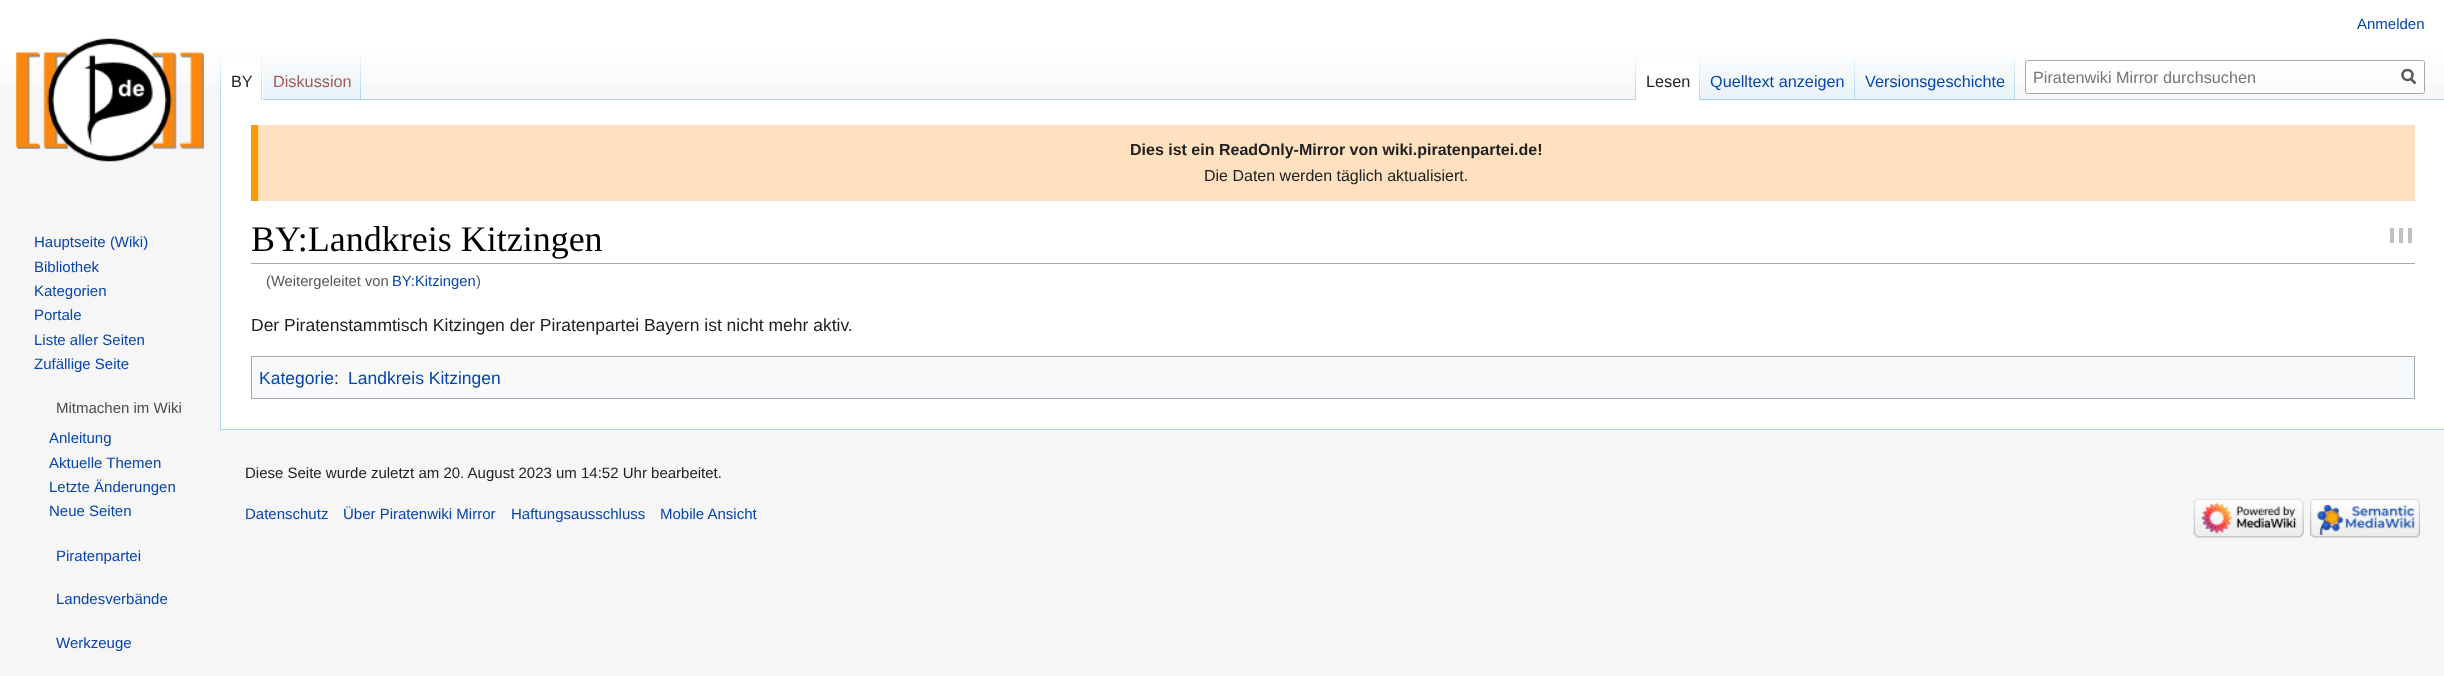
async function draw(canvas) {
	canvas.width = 2444;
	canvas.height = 676;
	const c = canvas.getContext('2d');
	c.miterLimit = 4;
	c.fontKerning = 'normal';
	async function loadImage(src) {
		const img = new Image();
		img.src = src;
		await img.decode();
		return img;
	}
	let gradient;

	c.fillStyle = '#f6f6f6';
	c.fillRect(0, 0, 2444, 676);
	gradient = c.createLinearGradient(1223, 0, 1223, 100);
	gradient.addColorStop(0.5, '#fff');
	gradient.addColorStop(1, '#f6f6f6');
	c.fillStyle = gradient;
	c.fillRect(0, 0, 2444, 86);
	c.font = '15px Liberation Sans';
	c.fillStyle = '#0645ad';
	c.fillText('Anmelden', 2357, 29);
	c.fillStyle = '#a7d7f9';
	c.fillRect(220, 429, 2224, 1);
	c.fillRect(220, 99, 1, 331);
	gradient = c.createLinearGradient(221, 50, 221, 100);
	gradient.addColorStop(0, '#a7d7f900');
	gradient.addColorStop(1, '#a7d7f9');
	c.fillStyle = gradient;
	c.fillRect(220, 50, 1, 50);
	c.fillStyle = '#fff';
	c.fillRect(221, 64, 42, 36);
	gradient = c.createLinearGradient(262, 50, 262, 100);
	gradient.addColorStop(0, '#fff');
	gradient.addColorStop(1, '#a7d7f9');
	c.fillStyle = gradient;
	c.fillRect(261, 50, 1, 50);
	c.font = '16.25px Liberation Sans';
	c.fillStyle = '#202122';
	c.fillText('BY', 231, 87);
	gradient = c.createLinearGradient(312, 100, 312, 50);
	gradient.addColorStop(0, '#77c1f6');
	gradient.addColorStop(0.03, '#e8f2f8');
	gradient.addColorStop(1, '#fff');
	c.fillStyle = gradient;
	c.fillRect(263, 57, 98, 43);
	gradient = c.createLinearGradient(361, 50, 361, 100);
	gradient.addColorStop(0, '#a7d7f900');
	gradient.addColorStop(1, '#a7d7f9');
	c.fillStyle = gradient;
	c.fillRect(360, 50, 1, 50);
	c.fillStyle = '#a55858';
	c.fillText('Diskussion', 273, 87);
	c.fillStyle = '#a7d7f9';
	c.fillRect(361, 99, 2083, 1);
	gradient = c.createLinearGradient(1636, 50, 1636, 100);
	gradient.addColorStop(0, '#a7d7f900');
	gradient.addColorStop(1, '#a7d7f9');
	c.fillStyle = gradient;
	c.fillRect(1635, 50, 1, 50);
	c.fillStyle = '#fff';
	c.fillRect(1636, 64, 63, 36);
	gradient = c.createLinearGradient(1699, 50, 1699, 100);
	gradient.addColorStop(0, '#fff');
	gradient.addColorStop(1, '#a7d7f9');
	c.fillStyle = gradient;
	c.fillRect(1699, 50, 1, 50);
	c.fillStyle = '#202122';
	c.fillText('Lesen', 1646, 87);
	gradient = c.createLinearGradient(1778, 100, 1778, 50);
	gradient.addColorStop(0, '#77c1f6');
	gradient.addColorStop(0.03, '#e8f2f8');
	gradient.addColorStop(1, '#fff');
	c.fillStyle = gradient;
	c.fillRect(1700, 57, 155, 43);
	gradient = c.createLinearGradient(1854, 50, 1854, 100);
	gradient.addColorStop(0, '#a7d7f900');
	gradient.addColorStop(1, '#a7d7f9');
	c.fillStyle = gradient;
	c.fillRect(1854, 50, 1, 50);
	c.fillStyle = '#0645ad';
	c.fillText('Quelltext anzeigen', 1710, 87);
	gradient = c.createLinearGradient(1935, 100, 1935, 50);
	gradient.addColorStop(0, '#77c1f6');
	gradient.addColorStop(0.03, '#e8f2f8');
	gradient.addColorStop(1, '#fff');
	c.fillStyle = gradient;
	c.fillRect(1855, 57, 160, 43);
	gradient = c.createLinearGradient(2014, 50, 2014, 100);
	gradient.addColorStop(0, '#a7d7f900');
	gradient.addColorStop(1, '#a7d7f9');
	c.fillStyle = gradient;
	c.fillRect(2014, 50, 1, 50);
	c.fillStyle = '#0645ad';
	c.fillText('Versionsgeschichte', 1865, 87);
	c.fillStyle = '#ffffff80';
	c.beginPath();
	c.roundRect(2025.5, 60.5, 399, 33, 2);
	c.fill();
	c.strokeStyle = '#a2a9b1';
	c.stroke();
	c.fillStyle = '#72777d';
	c.fillText('Piratenwiki Mirror durchsuchen', 2033, 83);
	c.beginPath();
	c.moveTo(2415.5, 83.5);
	c.lineTo(2410.5, 78.5);
	c.strokeStyle = '#54595d';
	c.lineWidth = 2.5;
	c.stroke();
	c.save();
	c.beginPath();
	c.rect(2401, 69, 15, 16);
	c.clip();
	c.beginPath();
	c.arc(2407.5, 75, 5, 0, 2 * Math.PI);
	c.stroke();
	c.restore();
	c.drawImage(await loadImage('img1.png'), 16, 38, 188, 124);
	c.font = '15px Liberation Sans';
	c.fillStyle = '#0645ad';
	for (const [text, x, y] of [
		['Hauptseite (Wiki)', 34, 247],
		['Bibliothek', 34, 272],
		['Kategorien', 34, 296],
		['Portale', 34, 320],
		['Liste aller Seiten', 34, 345],
		['Zufällige Seite', 34, 369],
	]) {
		c.fillText(text, x, y);
	}
	c.fillStyle = '#797979';
	c.beginPath();
	c.moveTo(116, 408);
	c.lineTo(116, 408.5);
	c.lineTo(115.5, 408);
	c.closePath();
	c.fill();
	c.fillStyle = '#4d4d4d';
	c.fillText('Mitmachen im Wiki', 56, 413);
	c.fillStyle = '#0645ad';
	for (const [text, x, y] of [
		['Anleitung', 49, 443],
		['Aktuelle Themen', 49, 468],
		['Letzte Änderungen', 49, 492],
		['Neue Seiten', 49, 516],
	]) {
		c.fillText(text, x, y);
	}
	c.fillStyle = '#797979';
	c.beginPath();
	c.moveTo(115.5, 555);
	c.lineTo(116, 555.5);
	c.lineTo(115.5, 556);
	c.closePath();
	c.fill();
	c.fillStyle = '#0645ad';
	c.fillText('Piratenpartei', 56, 561);
	c.fillStyle = '#797979';
	c.beginPath();
	c.moveTo(115.5, 599);
	c.lineTo(116, 599.5);
	c.lineTo(115.5, 600);
	c.closePath();
	c.fill();
	c.fillStyle = '#0645ad';
	c.fillText('Landesverbände', 56, 604);
	c.fillStyle = '#797979';
	c.beginPath();
	c.moveTo(115.5, 642.5);
	c.lineTo(116, 643);
	c.lineTo(115.5, 643.5);
	c.closePath();
	c.fill();
	c.fillStyle = '#0645ad';
	c.fillText('Werkzeuge', 56, 648);
	for (const [x, y, w, h, color] of [
		[221, 100, 2223, 329, '#fff'],
		[258, 125, 2157, 76, '#ffe1bf'],
		[251, 125, 7, 76, '#f90'],
	]) {
		c.fillStyle = color;
		c.fillRect(x, y, w, h);
	}
	c.font = 'bold 16px Liberation Sans';
	c.fillStyle = '#202122';
	c.fillText('Dies ist ein ReadOnly-Mirror von wiki.piratenpartei.de!', 1130, 155);
	c.font = '16px Liberation Sans';
	c.fillText('Die Daten werden täglich aktualisiert.', 1204, 181);
	c.fillStyle = '#a2a9b1';
	c.fillRect(251, 263, 2164, 1);
	c.font = '36px Liberation Serif';
	c.fillStyle = '#000';
	c.fillText('BY:Landkreis Kitzingen', 251, 251);
	for (const [x, y, w, h, color] of [
		[2399, 228, 4, 15, '#c0c0c0'],
		[2390, 228, 4, 15, '#c0c0c0'],
		[2408, 228, 4, 15, '#c0c0c0'],
	]) {
		c.fillStyle = color;
		c.fillRect(x, y, w, h);
	}
	c.font = '14.75px Liberation Sans';
	c.fillStyle = '#54595d';
	c.fillText('(Weitergeleitet von', 266, 286);
	c.fillStyle = '#0645ad';
	c.fillText('BY:Kitzingen', 392, 286);
	c.fillStyle = '#54595d';
	c.fillText(')', 476, 286);
	c.font = '17.5px Liberation Sans';
	c.fillStyle = '#202122';
	c.fillText('Der Piratenstammtisch Kitzingen der Piratenpartei Bayern ist nicht mehr aktiv.', 251, 331);
	c.fillStyle = '#f8f9fa';
	c.beginPath();
	c.rect(251.5, 356.5, 2163, 42);
	c.fill();
	c.strokeStyle = '#a2a9b1';
	c.lineWidth = 1;
	c.stroke();
	c.fillStyle = '#0645ad';
	c.fillText('Kategorie', 259, 384);
	c.fillStyle = '#202122';
	c.fillText(':', 334, 384);
	c.fillStyle = '#0645ad';
	c.fillText('Landkreis Kitzingen', 348, 384);
	c.font = '15px Liberation Sans';
	c.fillStyle = '#202122';
	c.fillText('Diese Seite wurde zuletzt am 20. August 2023 um 14:52 Uhr bearbeitet.', 245, 478);
	c.fillStyle = '#0645ad';
	for (const [text, x, y] of [
		['Datenschutz', 245, 519],
		['Über Piratenwiki Mirror', 343, 519],
		['Haftungsausschluss', 511, 519],
		['Mobile Ansicht', 660, 519],
	]) {
		c.fillText(text, x, y);
	}
	c.drawImage(await loadImage('img2.png'), 2193, 498, 111, 40);
	c.drawImage(await loadImage('img3.png'), 2310, 498, 110, 40);
}

draw(document.querySelector('canvas'));
